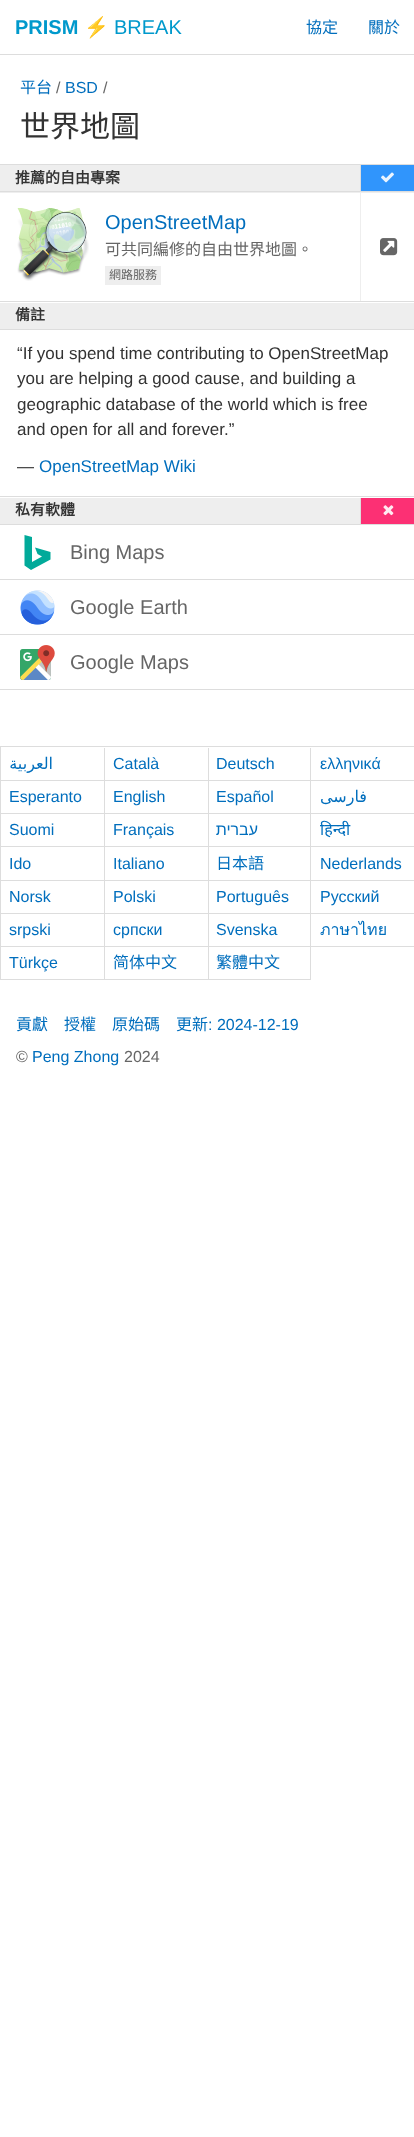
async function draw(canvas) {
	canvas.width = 414;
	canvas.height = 2137;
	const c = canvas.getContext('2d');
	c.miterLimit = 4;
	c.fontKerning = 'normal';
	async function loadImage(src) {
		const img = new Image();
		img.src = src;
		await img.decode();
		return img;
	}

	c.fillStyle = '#fff';
	c.fillRect(0, 0, 414, 2137);
	c.fillStyle = '#ddd';
	c.fillRect(0, 54, 414, 1);
	c.font = 'bold 20px Liberation Sans';
	c.fillStyle = '#09c';
	c.fillText('PRISM', 15, 34);
	c.font = '20px Noto Color Emoji';
	c.fillText('⚡', 84, 34);
	c.font = '20px Liberation Sans';
	c.fillText('BREAK', 114, 34);
	c.font = '16px Noto Sans CJK TC';
	c.fillStyle = '#006ebd';
	c.fillText('協定', 306, 33);
	c.fillText('關於', 368, 33);
	c.fillStyle = '#ddd';
	c.fillRect(0, 164, 414, 1);
	c.fillStyle = '#006ebd';
	c.fillText('平台', 20, 93);
	c.font = '16px Liberation Sans';
	c.fillStyle = '#666';
	c.fillText('/', 56, 93);
	c.fillStyle = '#006ebd';
	c.fillText('BSD', 65, 93);
	c.fillStyle = '#666';
	c.fillText('/', 103, 93);
	c.font = '30px Noto Sans CJK TC';
	c.fillStyle = '#333';
	c.fillText('世界地圖', 20, 137);
	c.fillStyle = '#eee';
	c.fillRect(0, 165, 414, 28);
	c.fillStyle = '#ddd';
	c.fillRect(0, 191, 414, 1);
	c.font = 'bold 15px Noto Sans CJK TC';
	c.fillStyle = '#333';
	c.fillText('推薦的自由專案', 15, 183);
	c.fillStyle = '#3095fc';
	c.fillRect(361, 165, 53, 26);
	c.fillStyle = '#ddd';
	c.fillRect(360, 165, 1, 26);
	c.drawImage(await loadImage('img1.png'), 381, 172, 13, 11);
	c.fillRect(0, 301, 414, 1);
	c.drawImage(await loadImage('img2.png'), 17, 208, 72, 73);
	c.font = '20px Liberation Sans';
	c.fillStyle = '#006ebd';
	c.fillText('OpenStreetMap', 105, 229);
	c.font = '16px Noto Sans CJK TC';
	c.fillStyle = '#666';
	c.fillText('可共同編修的自由世界地圖。', 105, 255);
	c.fillStyle = '#eee';
	c.fillRect(105, 266, 56, 19);
	c.font = '12px Noto Sans CJK TC';
	c.fillStyle = '#666';
	c.fillText('網路服務', 109, 279);
	c.fillStyle = '#eee';
	c.fillRect(360, 193, 1, 108);
	c.drawImage(await loadImage('img3.png'), 380, 238, 18, 18);
	c.fillRect(0, 303, 414, 26);
	c.fillStyle = '#ddd';
	c.fillRect(0, 329, 414, 1);
	c.font = 'bold 15px Noto Sans CJK TC';
	c.fillStyle = '#333';
	c.fillText('備註', 15, 320);
	c.fillStyle = '#ddd';
	c.fillRect(0, 496, 414, 1);
	c.font = '17px Liberation Sans';
	c.fillStyle = '#333';
	for (const [text, x, y] of [
		['“If you spend time contributing to OpenStreetMap', 17, 359],
		['you are helping a good cause, and building a', 17, 384],
		['geographic database of the world which is free', 17, 410],
		['and open for all and forever.”', 17, 435],
		['—', 17, 472],
	]) {
		c.fillText(text, x, y);
	}
	c.fillStyle = '#006ebd';
	c.fillText('OpenStreetMap Wiki', 39, 472);
	c.fillStyle = '#eee';
	c.fillRect(0, 498, 360, 26);
	c.fillStyle = '#ddd';
	c.fillRect(0, 524, 414, 1);
	c.font = 'bold 15px Noto Sans CJK TC';
	c.fillStyle = '#333';
	c.fillText('私有軟體', 15, 515);
	c.fillStyle = '#fc3074';
	c.fillRect(361, 498, 53, 26);
	c.fillStyle = '#ddd';
	c.fillRect(360, 498, 1, 26);
	c.drawImage(await loadImage('img4.png'), 383, 505, 11, 11);
	c.fillRect(0, 579, 414, 1);
	c.fillStyle = '#01aa9a';
	c.beginPath();
	c.moveTo(24.5, 535);
	c.lineTo(24.5, 565.5);
	c.lineTo(31, 570);
	c.lineTo(50.5, 559.5);
	c.lineTo(50.5, 552);
	c.lineTo(35, 547.5);
	c.lineTo(37.5, 554);
	c.lineTo(42, 556.5);
	c.lineTo(32, 562);
	c.lineTo(32, 537);
	c.closePath();
	c.fill();
	c.font = '20px Liberation Sans';
	c.fillStyle = '#666';
	c.fillText('Bing Maps', 70, 559);
	c.fillStyle = '#ddd';
	c.fillRect(0, 634, 414, 1);
	c.drawImage(await loadImage('img5.png'), 20, 590, 35, 35);
	c.fillStyle = '#666';
	c.fillText('Google Earth', 70, 614);
	c.fillStyle = '#ddd';
	c.fillRect(0, 689, 414, 1);
	c.drawImage(await loadImage('img6.png'), 20, 645, 35, 35);
	c.fillStyle = '#666';
	c.fillText('Google Maps', 70, 669);
	for (const [x, y, w, h, color] of [
		[0, 746, 414, 1, '#ddd'],
		[0, 746, 1, 234, '#ddd'],
		[104, 748, 1, 232, '#ddd'],
		[1, 780, 104, 1, '#ddd'],
	]) {
		c.fillStyle = color;
		c.fillRect(x, y, w, h);
	}
	c.direction = 'rtl';
	c.font = '16px DejaVu Sans';
	c.fillStyle = '#006ebd';
	c.fillText('العربية', 53, 769);
	c.fillStyle = '#ddd';
	c.fillRect(208, 748, 1, 232);
	c.fillRect(105, 780, 104, 1);
	c.direction = 'ltr';
	c.font = '16px Liberation Sans';
	c.fillStyle = '#006ebd';
	c.fillText('Català', 113, 769);
	c.fillStyle = '#ddd';
	c.fillRect(310, 748, 1, 232);
	c.fillRect(209, 780, 205, 1);
	c.fillStyle = '#006ebd';
	c.fillText('Deutsch', 216, 769);
	c.fillText('ελληνικά', 320, 769);
	c.fillStyle = '#ddd';
	c.fillRect(1, 813, 413, 1);
	c.fillStyle = '#006ebd';
	for (const [text, x, y] of [
		['Esperanto', 9, 802],
		['English', 113, 802],
		['Español', 216, 802],
	]) {
		c.fillText(text, x, y);
	}
	c.direction = 'rtl';
	c.font = '16px DejaVu Sans';
	c.fillText('فارسی', 367, 802);
	c.fillStyle = '#ddd';
	c.fillRect(1, 846, 413, 1);
	c.direction = 'ltr';
	c.font = '16px Liberation Sans';
	c.fillStyle = '#006ebd';
	c.fillText('Suomi', 9, 835);
	c.fillText('Français', 113, 835);
	c.direction = 'rtl';
	c.fillText('עברית', 258, 835);
	c.direction = 'ltr';
	c.font = '16px Noto Sans';
	c.fillText('हिन्दी', 320, 835);
	c.fillStyle = '#ddd';
	c.fillRect(1, 880, 413, 1);
	c.font = '16px Liberation Sans';
	c.fillStyle = '#006ebd';
	c.fillText('Ido', 9, 869);
	c.fillText('Italiano', 113, 869);
	c.font = '16px Noto Sans CJK TC';
	c.fillText('日本語', 216, 869);
	c.font = '16px Liberation Sans';
	c.fillText('Nederlands', 320, 869);
	c.fillStyle = '#ddd';
	c.fillRect(1, 913, 413, 1);
	c.fillStyle = '#006ebd';
	for (const [text, x, y] of [
		['Norsk', 9, 902],
		['Polski', 113, 902],
		['Português', 216, 902],
		['Русский', 320, 902],
	]) {
		c.fillText(text, x, y);
	}
	c.fillStyle = '#ddd';
	c.fillRect(1, 946, 413, 1);
	c.fillStyle = '#006ebd';
	for (const [text, x, y] of [
		['srpski', 9, 935],
		['српски', 113, 935],
		['Svenska', 216, 935],
	]) {
		c.fillText(text, x, y);
	}
	c.font = '16px Loma';
	c.fillText('ภาษาไทย', 320, 935);
	c.fillStyle = '#ddd';
	c.fillRect(1, 979, 310, 1);
	c.font = '16px Liberation Sans';
	c.fillStyle = '#006ebd';
	c.fillText('Türkçe', 9, 968);
	c.font = '16px Noto Sans CJK TC';
	for (const [text, x, y] of [
		['简体中文', 113, 968],
		['繁體中文', 216, 968],
		['貢獻', 16, 1030],
		['授權', 64, 1030],
		['原始碼', 112, 1030],
		['更新', 176, 1030],
	]) {
		c.fillText(text, x, y);
	}
	c.font = '16px Liberation Sans';
	c.fillText(': 2024-12-19', 208, 1030);
	c.fillStyle = '#666';
	c.fillText('©', 16, 1062);
	c.fillStyle = '#006ebd';
	c.fillText('Peng Zhong', 32, 1062);
	c.fillStyle = '#666';
	c.fillText('2024', 124, 1062);
}

draw(document.querySelector('canvas'));
